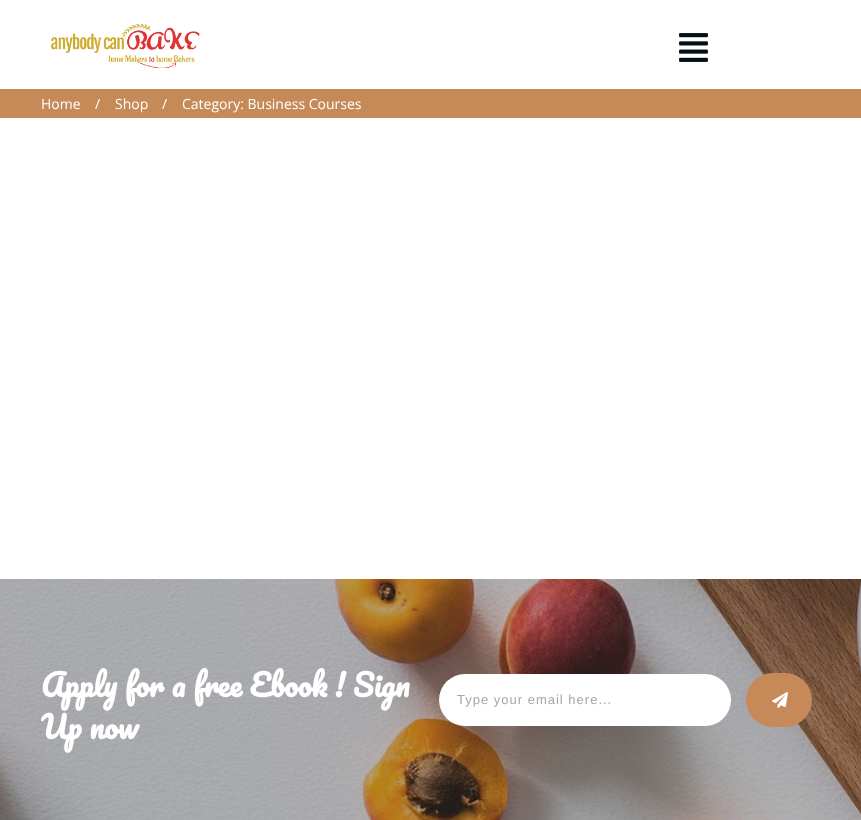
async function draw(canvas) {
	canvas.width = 861;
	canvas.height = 820;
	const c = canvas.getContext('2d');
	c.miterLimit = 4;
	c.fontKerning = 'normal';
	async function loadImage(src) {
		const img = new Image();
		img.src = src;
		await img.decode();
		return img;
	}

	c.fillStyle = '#fff';
	c.fillRect(0, 0, 861, 820);
	c.drawImage(await loadImage('img1.png'), 51, 24, 149, 47);
	c.drawImage(await loadImage('img2.png'), 679, 33, 29, 29);
	c.fillStyle = '#c68a58';
	c.fillRect(0, 89, 861, 29);
	c.font = '14px Open Sans';
	c.fillStyle = '#fff';
	for (const [text, x, y] of [
		['Home', 41, 109],
		['/', 95, 109],
		['Shop', 115, 109],
		['/', 162, 109],
		['Category: Business Courses', 182, 109],
	]) {
		c.fillText(text, x, y);
	}
	c.drawImage(await loadImage('img3.png'), 0, 579, 861, 241);
	c.font = 'bold 30px Pacifico';
	c.fillText('Apply for a free Ebook ! Sign', 41, 697);
	c.fillText('Up now', 41, 739);
	c.beginPath();
	c.roundRect(439, 674, 292, 52, 26);
	c.fill();
	c.letterSpacing = '1px';
	c.font = '13px Liberation Sans';
	c.fillStyle = '#a6a6a6';
	c.fillText('Type your email here...', 457, 704);
	c.fillStyle = '#c68a58';
	c.beginPath();
	c.roundRect(746, 673, 66, 54, 27);
	c.fill();
	c.drawImage(await loadImage('img4.png'), 772, 692, 16, 16);
}

draw(document.querySelector('canvas'));
